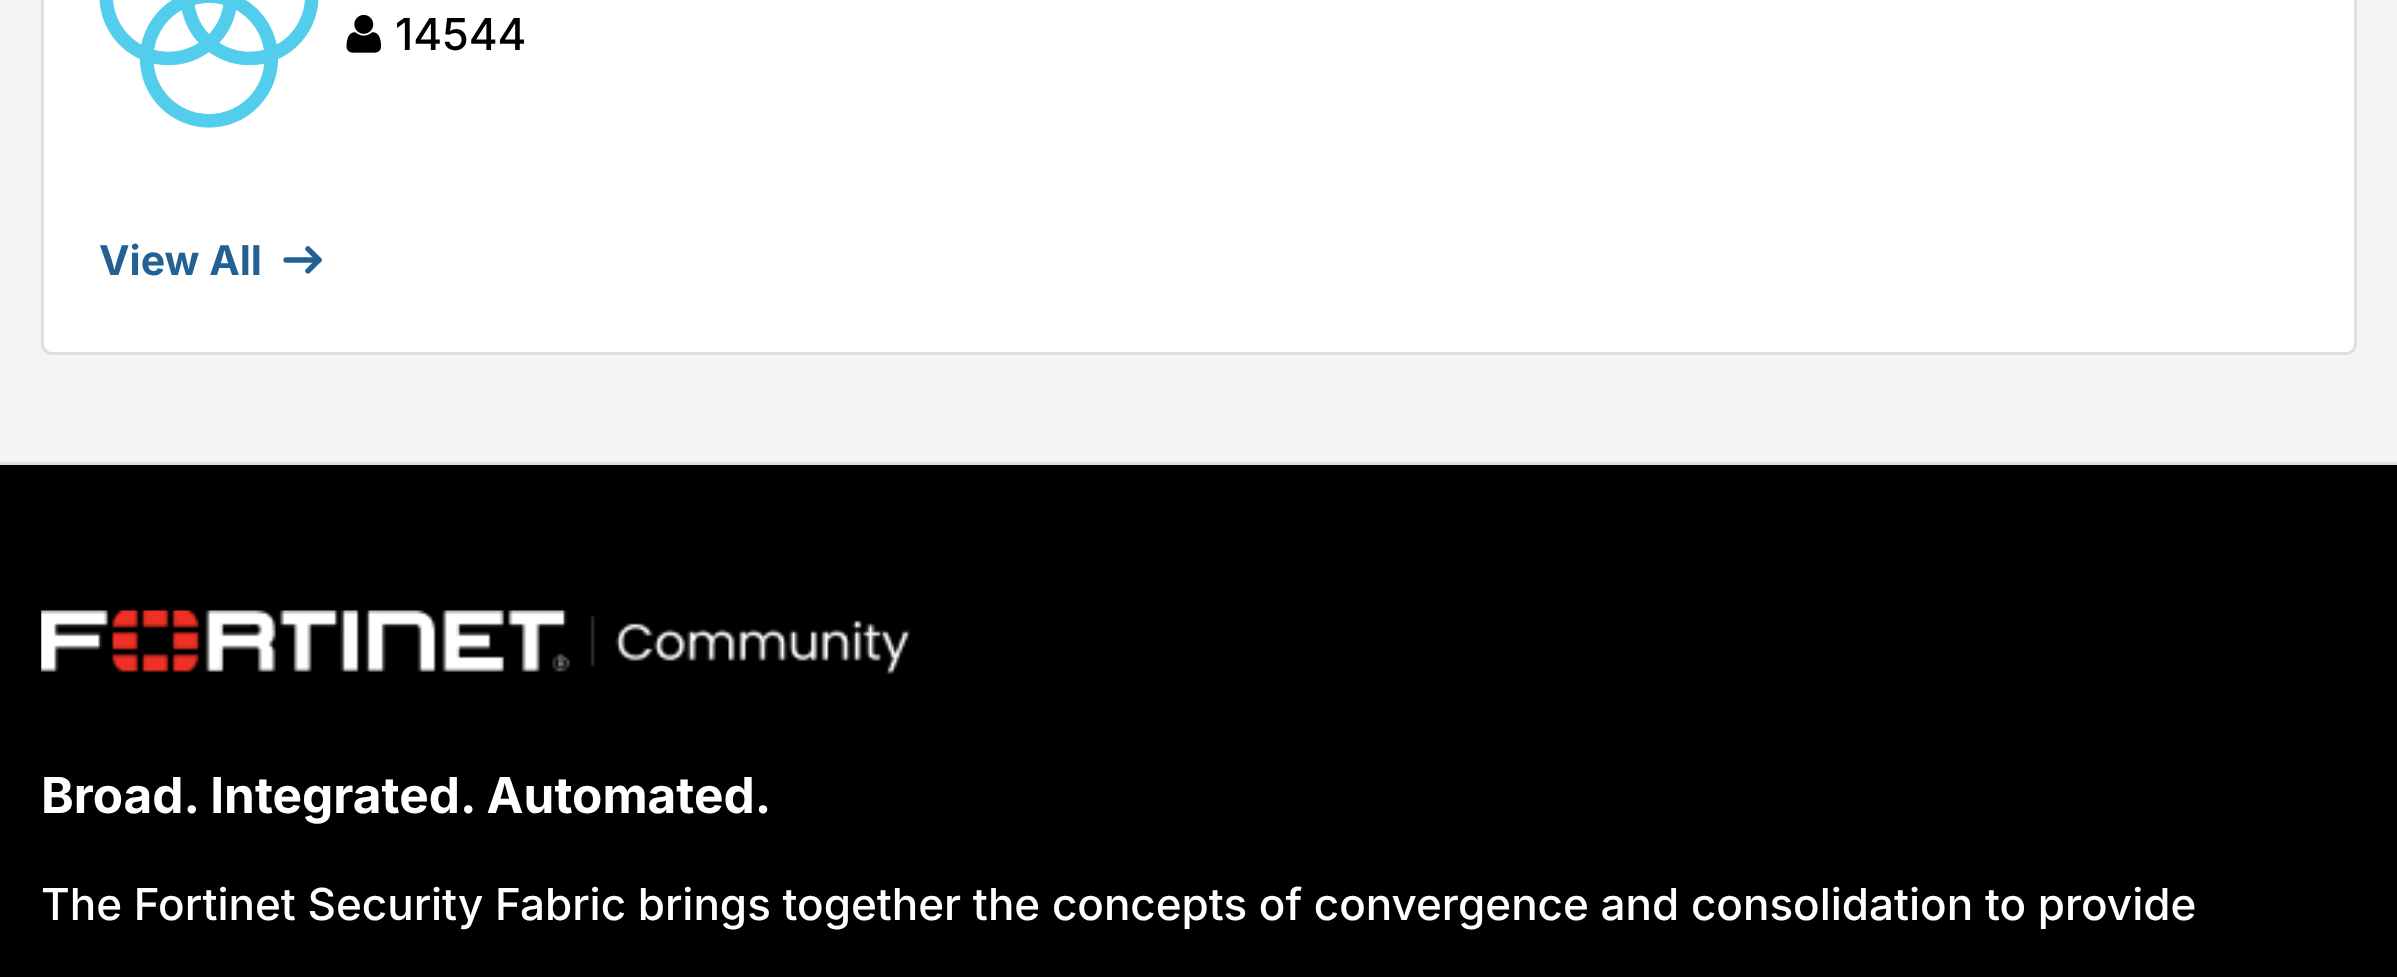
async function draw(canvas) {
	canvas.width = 2397;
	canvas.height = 977;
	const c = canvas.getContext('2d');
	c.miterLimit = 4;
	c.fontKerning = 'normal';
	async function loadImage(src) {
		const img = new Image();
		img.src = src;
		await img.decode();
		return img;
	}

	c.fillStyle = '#f4f4f4';
	c.fillRect(0, 0, 2397, 977);
	c.fillStyle = '#fff';
	c.beginPath();
	c.roundRect(42.5, -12.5, 2313, 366, 9.5);
	c.fill();
	c.strokeStyle = '#d9e1e2';
	c.lineWidth = 3;
	c.stroke();
	c.drawImage(await loadImage('img1.png'), 99, 0, 220, 128);
	c.drawImage(await loadImage('img2.png'), 346, 14, 36, 39);
	c.font = '500 44px Inter';
	c.fillStyle = '#000';
	c.fillText('14544', 395, 50);
	c.font = 'bold 41px Inter';
	c.fillStyle = '#236093';
	c.fillText('View All', 99, 275);
	c.drawImage(await loadImage('img3.png'), 283, 246, 39, 28);
	c.fillStyle = '#d9e1e2';
	c.fillRect(0, 462, 2397, 3);
	c.fillStyle = '#000';
	c.fillRect(0, 465, 2397, 512);
	c.drawImage(await loadImage('img4.png'), 41, 610, 870, 64);
	c.font = 'bold 49.5px Inter';
	c.fillStyle = '#fff';
	c.fillText('Broad. Integrated. Automated.', 41, 813);
	c.font = '500 44px Inter';
	c.fillText('The Fortinet Security Fabric brings together the concepts of convergence and consolidation to provide', 41, 920);
}

draw(document.querySelector('canvas'));
